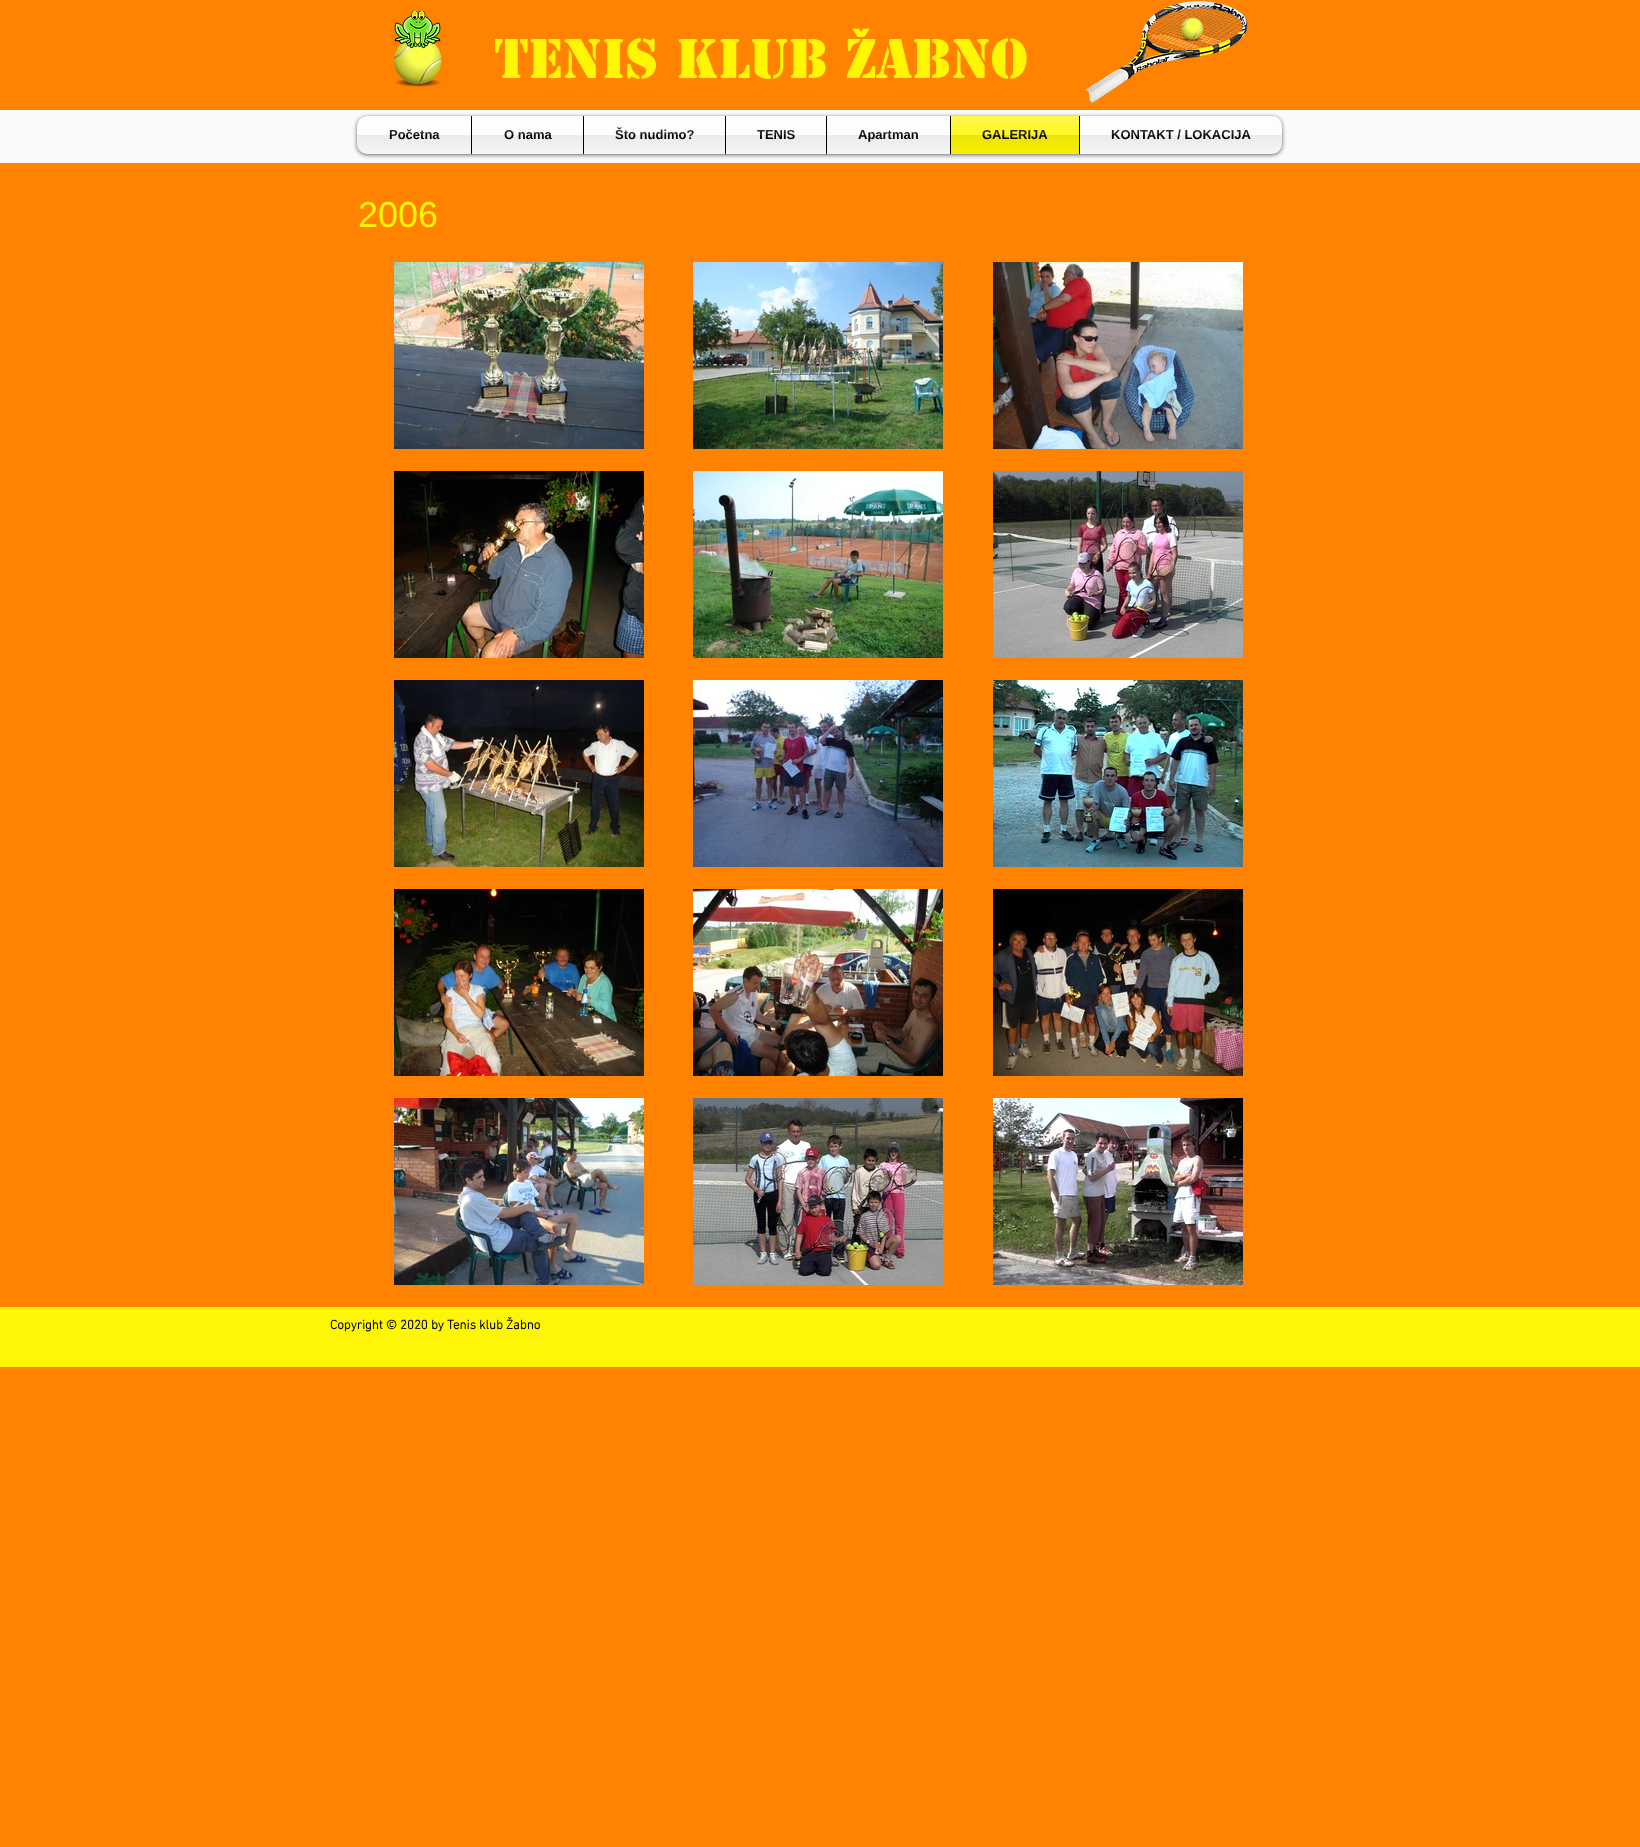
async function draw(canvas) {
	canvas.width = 1640;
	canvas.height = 1847;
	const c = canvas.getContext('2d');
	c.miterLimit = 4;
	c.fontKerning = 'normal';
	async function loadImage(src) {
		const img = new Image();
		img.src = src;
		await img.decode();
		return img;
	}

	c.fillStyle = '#ff8300';
	c.fillRect(0, 0, 1640, 1847);
	c.drawImage(await loadImage('img3.png'), 393, 37, 49, 50);
	c.drawImage(await loadImage('img1.png'), 394, 11, 47, 38);
	c.drawImage(await loadImage('img2.png'), 1085, 1, 163, 102);
	c.font = 'bold 52px "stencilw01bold"';
	c.fillStyle = '#fff605';
	c.fillText('Tenis klub Žabno', 494, 78);
	c.drawImage(await loadImage('img4.png'), 1180, 18, 24, 23);
	c.fillStyle = '#fafafa';
	c.fillRect(0, 110, 1640, 53);
	c.fillStyle = '#00000099';
	c.filter = 'blur(2px)';
	c.beginPath();
	c.roundRect(357, 117, 925, 38, 10);
	c.fill();
	c.filter = 'none';
	c.drawImage(await loadImage('img5.png'), 357, 144, 925, 10);
	c.fillStyle = '#fefdfd';
	c.beginPath();
	c.roundRect(357, 116, 114, 38, [10, 0, 0, 10]);
	c.fill();
	c.font = 'bold 13px Liberation Sans';
	c.fillStyle = '#000';
	c.fillText('Početna', 389, 139);
	c.drawImage(await loadImage('img6.png'), 357, 129, 114, 25);
	c.fillStyle = '#fefdfd';
	c.fillRect(472, 116, 111, 38);
	c.fillStyle = '#000';
	c.fillRect(471, 116, 1, 38);
	c.fillText('O nama', 504, 139);
	c.drawImage(await loadImage('img7.png'), 472, 130, 111, 24);
	c.fillStyle = '#fefdfd';
	c.fillRect(584, 116, 141, 38);
	c.fillStyle = '#000';
	c.fillRect(583, 116, 1, 38);
	c.fillText('Što nudimo?', 615, 139);
	c.drawImage(await loadImage('img8.png'), 584, 127, 141, 27);
	c.fillStyle = '#fefdfd';
	c.fillRect(726, 116, 100, 38);
	c.fillStyle = '#000';
	c.fillRect(725, 116, 1, 38);
	c.fillText('TENIS', 757, 139);
	c.drawImage(await loadImage('img9.png'), 726, 130, 100, 24);
	c.fillStyle = '#fefdfd';
	c.fillRect(827, 116, 123, 38);
	c.fillStyle = '#000';
	c.fillRect(826, 116, 1, 38);
	c.fillText('Apartman', 858, 139);
	c.drawImage(await loadImage('img10.png'), 827, 130, 123, 24);
	c.fillStyle = '#fff605';
	c.fillRect(951, 116, 128, 38);
	c.fillStyle = '#000';
	c.fillRect(950, 116, 1, 38);
	c.fillText('GALERIJA', 982, 139);
	c.drawImage(await loadImage('img11.png'), 951, 116, 128, 38);
	c.fillStyle = '#fefdfd';
	c.beginPath();
	c.roundRect(1079, 116, 203, 38, [0, 10, 10, 0]);
	c.fill();
	c.fillStyle = '#000';
	c.fillRect(1079, 116, 1, 38);
	c.fillText('KONTAKT / LOKACIJA', 1111, 139);
	c.drawImage(await loadImage('img12.png'), 1080, 129, 202, 25);
	c.font = '36px Liberation Sans';
	c.fillStyle = '#fff605';
	c.fillText('2006', 358, 227);
	c.drawImage(await loadImage('img13.png'), 394, 262, 250, 187);
	c.drawImage(await loadImage('img14.png'), 693, 262, 250, 187);
	c.drawImage(await loadImage('img15.png'), 993, 262, 250, 187);
	c.drawImage(await loadImage('img16.png'), 394, 471, 250, 187);
	c.drawImage(await loadImage('img17.png'), 693, 471, 250, 187);
	c.drawImage(await loadImage('img18.png'), 993, 471, 250, 187);
	c.drawImage(await loadImage('img19.png'), 394, 680, 250, 187);
	c.drawImage(await loadImage('img20.png'), 693, 680, 250, 187);
	c.drawImage(await loadImage('img21.png'), 993, 680, 250, 187);
	c.drawImage(await loadImage('img22.png'), 394, 889, 250, 187);
	c.drawImage(await loadImage('img23.png'), 693, 889, 250, 187);
	c.drawImage(await loadImage('img24.png'), 993, 889, 250, 187);
	c.drawImage(await loadImage('img25.png'), 394, 1098, 250, 187);
	c.drawImage(await loadImage('img26.png'), 693, 1098, 250, 187);
	c.drawImage(await loadImage('img27.png'), 993, 1098, 250, 187);
	c.fillRect(0, 1307, 1640, 60);
	c.font = 'bold 13px "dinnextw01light"';
	c.fillStyle = '#000';
	c.fillText('Copyright © 2020 by Tenis klub Žabno', 330, 1329);
}

draw(document.querySelector('canvas'));
